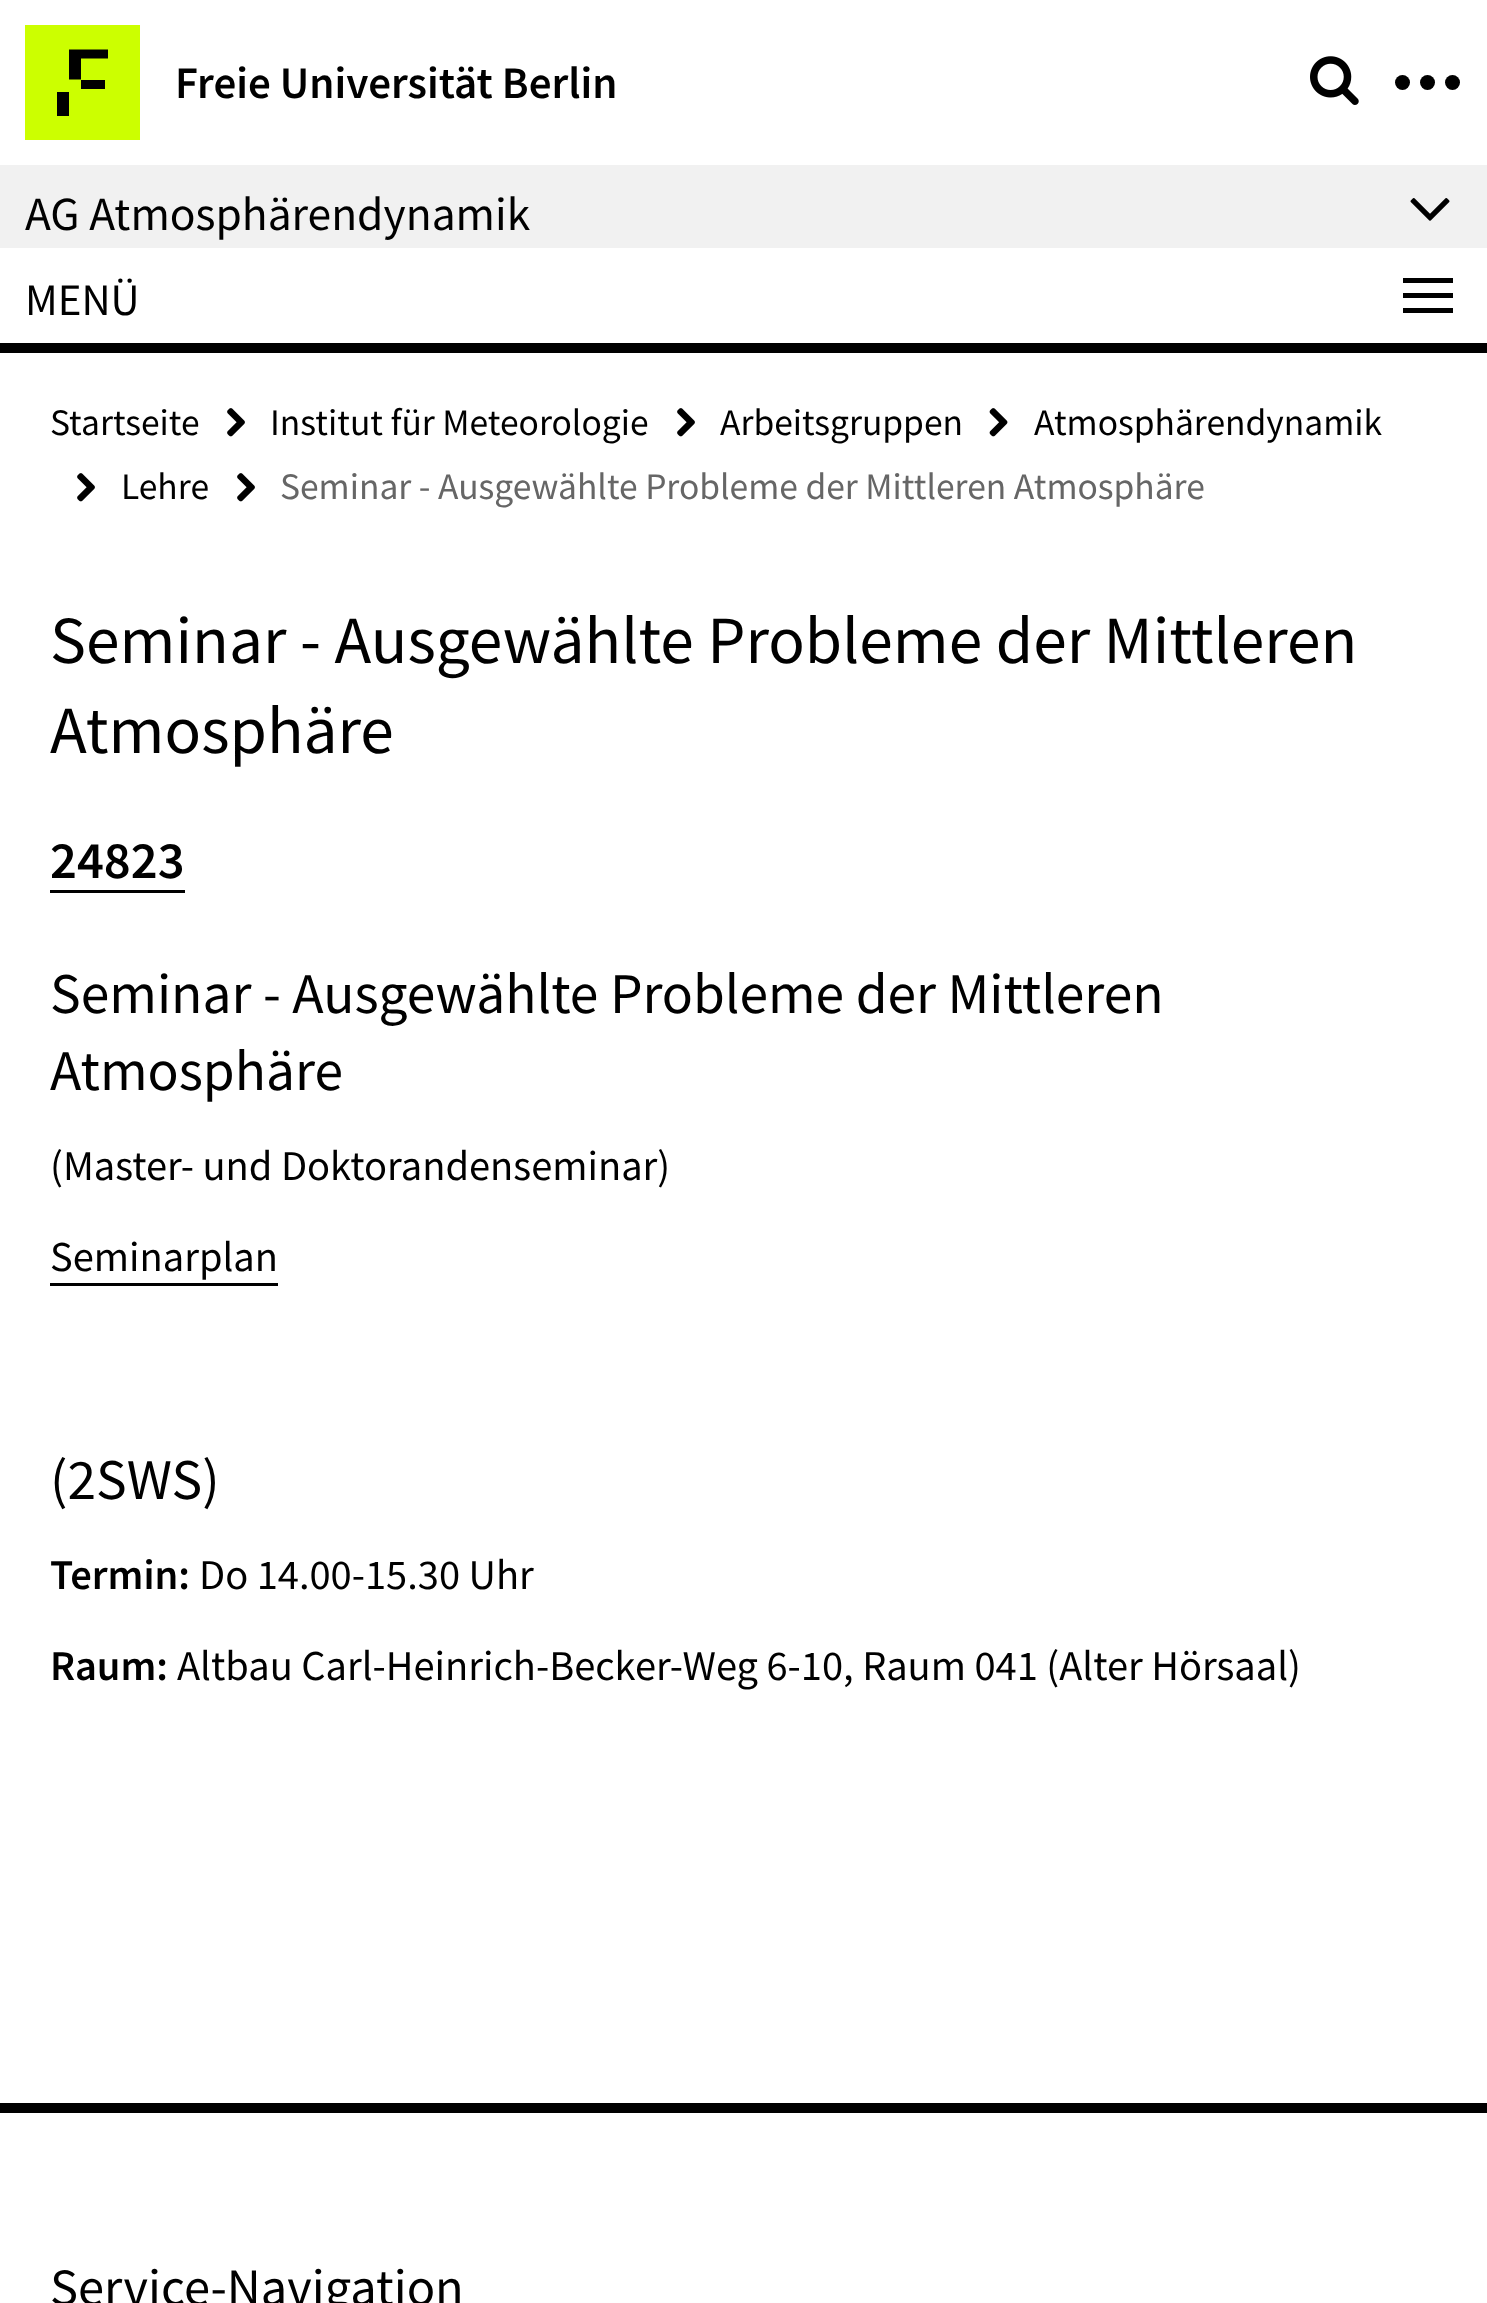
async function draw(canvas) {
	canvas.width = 1487;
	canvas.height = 2303;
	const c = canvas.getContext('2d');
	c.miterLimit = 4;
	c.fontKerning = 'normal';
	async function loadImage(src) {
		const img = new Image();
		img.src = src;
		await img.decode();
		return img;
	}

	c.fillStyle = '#fff';
	c.fillRect(0, 0, 1487, 2303);
	c.fillStyle = '#cf0';
	c.fillRect(25, 25, 115, 115);
	c.fillStyle = '#000';
	c.beginPath();
	c.moveTo(69, 49.5);
	c.lineTo(108, 49.5);
	c.lineTo(108, 58.5);
	c.lineTo(81, 58.5);
	c.lineTo(81, 79.5);
	c.lineTo(69, 79.5);
	c.closePath();
	c.fill();
	c.fillRect(81, 80, 24, 9);
	c.fillRect(57, 92, 12, 24);
	c.font = '600 45px Source Sans Pro';
	c.fillText('Freie Universität Berlin', 175, 98);
	c.drawImage(await loadImage('img1.png'), 1310, 56, 49, 49);
	c.beginPath();
	c.arc(1402.5, 82.5, 7.5, 0, 2 * Math.PI);
	c.fill();
	c.beginPath();
	c.arc(1427.5, 82.5, 7.5, 0, 2 * Math.PI);
	c.fill();
	c.beginPath();
	c.arc(1452.5, 82.5, 7.5, 0, 2 * Math.PI);
	c.fill();
	c.fillStyle = '#f1f1f1';
	c.fillRect(0, 165, 1487, 83);
	c.font = '47.5px Source Sans Pro';
	c.fillStyle = '#000';
	c.fillText('AG Atmosphärendynamik', 25, 230);
	c.drawImage(await loadImage('img2.png'), 1410, 198, 40, 23);
	c.fillRect(0, 343, 1487, 10);
	c.font = '45px Source Sans Pro';
	c.fillText('MENÜ', 25, 315);
	for (const [x, y, w, h, color] of [
		[1403, 278, 50, 5, '#000'],
		[1403, 293, 50, 5, '#000'],
		[1403, 308, 50, 5, '#000'],
	]) {
		c.fillStyle = color;
		c.fillRect(x, y, w, h);
	}
	c.font = '37.5px Source Sans Pro';
	c.fillText('Startseite', 50, 435);
	c.drawImage(await loadImage('img3.png'), 227, 408, 18, 29);
	c.fillText('Institut für Meteorologie', 270, 435);
	c.drawImage(await loadImage('img3.png'), 677, 408, 18, 29);
	c.fillText('Arbeitsgruppen', 720, 435);
	c.drawImage(await loadImage('img4.png'), 989, 408, 19, 29);
	c.fillText('Atmosphärendynamik', 1034, 435);
	c.drawImage(await loadImage('img3.png'), 77, 473, 18, 29);
	c.fillText('Lehre', 121, 499);
	c.drawImage(await loadImage('img3.png'), 237, 473, 18, 29);
	c.fillStyle = '#666';
	c.fillText('Seminar - Ausgewählte Probleme der Mittleren Atmosphäre', 280, 499);
	c.font = '67.5px Source Sans Pro';
	c.fillStyle = '#000';
	c.fillText('Seminar - Ausgewählte Probleme der Mittleren', 50, 663);
	c.fillText('Atmosphäre', 50, 753);
	c.font = '600 52.5px Source Sans Pro';
	c.fillText('24823', 50, 878);
	c.fillRect(50, 890, 135, 3);
	c.font = '57.5px Source Sans Pro';
	c.fillText('Seminar - Ausgewählte Probleme der Mittleren', 50, 1013);
	c.fillText('Atmosphäre', 50, 1090);
	c.font = '42.5px Source Sans Pro';
	c.fillText('(Master- und Doktorandenseminar)', 50, 1180);
	c.fillText('Seminarplan', 50, 1271);
	c.fillRect(50, 1283, 228, 3);
	c.font = '57.5px Source Sans Pro';
	c.fillText('(2SWS)', 50, 1499);
	c.font = '600 42.5px Source Sans Pro';
	c.fillText('Termin:', 50, 1589);
	c.font = '42.5px Source Sans Pro';
	c.fillText('Do 14.00-15.30 Uhr', 199, 1589);
	c.font = '600 42.5px Source Sans Pro';
	c.fillText('Raum:', 50, 1680);
	c.font = '42.5px Source Sans Pro';
	c.fillText('Altbau Carl-Heinrich-Becker-Weg 6-10, Raum 041 (Alter Hörsaal)', 177, 1680);
	c.fillRect(0, 2103, 1487, 10);
	c.font = '52.5px Source Sans Pro';
	c.fillText('Service-Navigation', 50, 2305);
}

draw(document.querySelector('canvas'));
